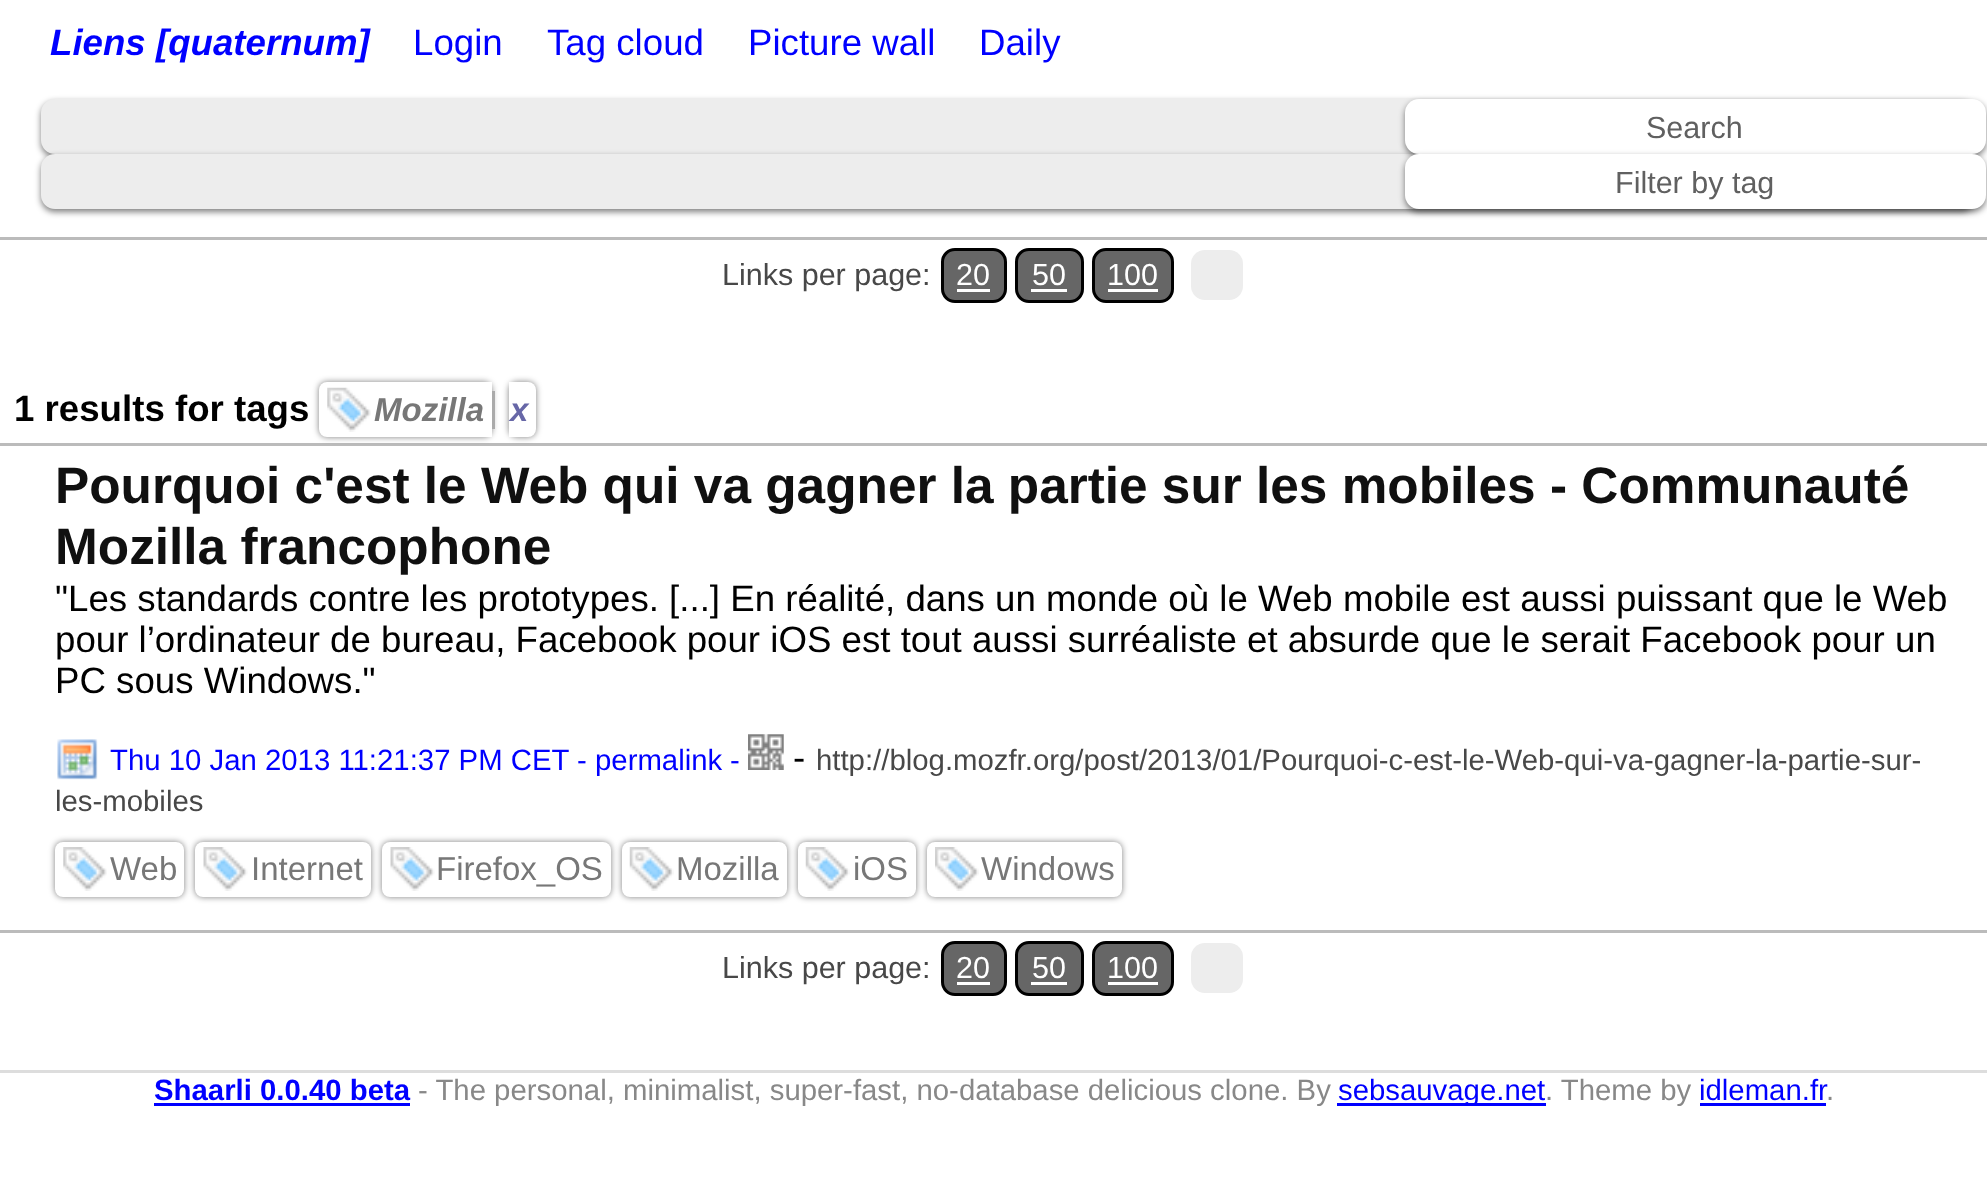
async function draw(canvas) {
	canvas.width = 1987;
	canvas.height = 1204;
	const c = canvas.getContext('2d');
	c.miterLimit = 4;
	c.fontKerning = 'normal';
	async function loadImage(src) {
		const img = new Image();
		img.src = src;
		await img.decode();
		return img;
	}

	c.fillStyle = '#fff';
	c.fillRect(0, 0, 1987, 1204);
	c.font = 'italic bold 36.67px Liberation Sans';
	c.fillStyle = '#00f';
	c.fillText('Liens [quaternum]', 50, 55);
	c.font = '36.67px Liberation Sans';
	for (const [text, x, y] of [
		['Login', 413, 55],
		['Tag cloud', 547, 55],
		['Picture wall', 748, 55],
		['Daily', 979, 55],
	]) {
		c.fillText(text, x, y);
	}
	c.fillStyle = '#00000080';
	c.filter = 'blur(3px)';
	c.beginPath();
	c.roundRect(41, 102, 1934, 55, 14);
	c.fill();
	c.filter = 'none';
	c.fillStyle = '#ededed';
	c.beginPath();
	c.roundRect(41, 99, 1934, 55, 14);
	c.fill();
	c.fillStyle = '#00000080';
	c.filter = 'blur(3px)';
	c.beginPath();
	c.roundRect(41, 157, 1934, 55, 14);
	c.fill();
	c.filter = 'none';
	c.fillStyle = '#ededed';
	c.beginPath();
	c.roundRect(41, 154, 1934, 55, 14);
	c.fill();
	c.fillStyle = '#00000080';
	c.filter = 'blur(3px)';
	c.beginPath();
	c.roundRect(1405, 102, 581, 55, 14);
	c.fill();
	c.filter = 'none';
	c.fillStyle = '#fff';
	c.beginPath();
	c.roundRect(1405, 99, 581, 55, 14);
	c.fill();
	c.font = '30.5px Liberation Sans';
	c.fillStyle = '#606060';
	c.fillText('Search', 1646, 138);
	c.fillStyle = '#00000080';
	c.filter = 'blur(3px)';
	c.beginPath();
	c.roundRect(1405, 157, 581, 55, 14);
	c.fill();
	c.filter = 'none';
	c.fillStyle = '#fff';
	c.beginPath();
	c.roundRect(1405, 154, 581, 55, 14);
	c.fill();
	c.fillStyle = '#606060';
	c.fillText('Filter by tag', 1615, 193);
	c.fillStyle = '#bbb';
	c.fillRect(0, 237, 1987, 3);
	c.fillStyle = '#484848';
	c.fillText('Links per page:', 722, 285);
	c.fillStyle = '#666';
	c.beginPath();
	c.roundRect(942.5, 249.5, 63, 52, 12.5);
	c.fill();
	c.strokeStyle = '#000';
	c.lineWidth = 3;
	c.stroke();
	c.fillStyle = '#fff';
	c.fillText('20', 956, 285);
	c.fillRect(957, 289, 33, 3);
	c.fillStyle = '#666';
	c.beginPath();
	c.roundRect(1016.5, 249.5, 66, 52, 12.5);
	c.fill();
	c.stroke();
	c.fillStyle = '#fff';
	c.fillText('50', 1032, 285);
	c.fillRect(1031, 289, 36, 3);
	c.fillStyle = '#666';
	c.beginPath();
	c.roundRect(1093.5, 249.5, 79, 52, 12.5);
	c.fill();
	c.stroke();
	c.fillStyle = '#fff';
	c.fillText('100', 1107, 285);
	c.fillRect(1108, 289, 50, 3);
	c.fillStyle = '#ededed';
	c.beginPath();
	c.roundRect(1191, 250, 52, 50, 14);
	c.fill();
	c.font = 'bold 36.67px Liberation Sans';
	c.fillStyle = '#000';
	c.fillText('1 results for tags', 14, 421);
	c.fillStyle = '#bbb';
	c.fillRect(0, 443, 1987, 3);
	c.fillStyle = '#00000080';
	c.filter = 'blur(3px)';
	c.beginPath();
	c.roundRect(319, 382, 173, 55, 8);
	c.fill();
	c.filter = 'none';
	c.fillStyle = '#fff';
	c.beginPath();
	c.roundRect(319, 382, 173, 55, [8, 0, 0, 8]);
	c.fill();
	c.drawImage(await loadImage('img1.png'), 327, 387, 44, 45);
	c.font = 'italic bold 33px Liberation Sans';
	c.fillStyle = '#777';
	c.fillText('Mozilla', 374, 421);
	c.fillStyle = '#aaa';
	c.fillRect(492, 391, 3, 38);
	c.fillStyle = '#00000080';
	c.filter = 'blur(3px)';
	c.beginPath();
	c.roundRect(509, 382, 27, 55, 8);
	c.fill();
	c.filter = 'none';
	c.fillStyle = '#fff';
	c.beginPath();
	c.roundRect(509, 382, 27, 55, [0, 8, 8, 0]);
	c.fill();
	c.fillStyle = '#6767a7';
	c.fillText('x', 510, 421);
	c.font = 'bold 51.35px Liberation Sans';
	c.fillStyle = '#101010';
	c.fillText('Pourquoi c\'est le Web qui va gagner la partie sur les mobiles - Communauté', 55, 503);
	c.fillText('Mozilla francophone', 55, 564);
	c.font = '36.67px Liberation Sans';
	c.fillStyle = '#000';
	for (const [text, x, y] of [
		['"Les standards contre les prototypes. [...] En réalité, dans un monde où le Web mobile est aussi puissant que le Web', 55, 611],
		['pour l’ordinateur de bureau, Facebook pour iOS est tout aussi surréaliste et absurde que le serait Facebook pour un', 55, 652],
		['PC sous Windows."', 55, 693],
	]) {
		c.fillText(text, x, y);
	}
	c.drawImage(await loadImage('img2.png'), 57, 739, 41, 41);
	c.font = '29.35px Liberation Sans';
	c.fillStyle = '#00f';
	c.fillText('Thu 10 Jan 2013 11:21:37 PM CET - permalink', 110, 770);
	c.drawImage(await loadImage('img3.png'), 748, 734, 36, 36);
	c.font = '36.67px Liberation Sans';
	c.fillStyle = '#000';
	c.fillText('-', 793, 770);
	c.font = '29.35px Liberation Sans';
	c.fillStyle = '#484848';
	c.fillText('http://blog.mozfr.org/post/2013/01/Pourquoi-c-est-le-Web-qui-va-gagner-la-partie-sur-', 816, 770);
	c.fillStyle = '#00f';
	c.fillText('-', 730, 770);
	c.fillStyle = '#484848';
	c.fillText('les-mobiles', 55, 811);
	c.fillStyle = '#00000080';
	c.filter = 'blur(3px)';
	c.beginPath();
	c.roundRect(55, 842, 129, 55, 8);
	c.fill();
	c.filter = 'none';
	c.fillStyle = '#fff';
	c.beginPath();
	c.roundRect(55, 842, 129, 55, 8);
	c.fill();
	c.drawImage(await loadImage('img4.png'), 63, 847, 44, 44);
	c.font = '33px Liberation Sans';
	c.fillStyle = '#777';
	c.fillText('Web', 110, 880);
	c.fillStyle = '#00000080';
	c.filter = 'blur(3px)';
	c.beginPath();
	c.roundRect(195, 842, 176, 55, 8);
	c.fill();
	c.filter = 'none';
	c.fillStyle = '#fff';
	c.beginPath();
	c.roundRect(195, 842, 176, 55, 8);
	c.fill();
	c.drawImage(await loadImage('img5.png'), 203, 847, 45, 44);
	c.fillStyle = '#777';
	c.fillText('Internet', 251, 880);
	c.fillStyle = '#00000080';
	c.filter = 'blur(3px)';
	c.beginPath();
	c.roundRect(382, 842, 229, 55, 8);
	c.fill();
	c.filter = 'none';
	c.fillStyle = '#fff';
	c.beginPath();
	c.roundRect(382, 842, 229, 55, 8);
	c.fill();
	c.drawImage(await loadImage('img6.png'), 390, 847, 45, 44);
	c.fillStyle = '#777';
	c.fillText('Firefox_OS', 436, 880);
	c.fillStyle = '#00000080';
	c.filter = 'blur(3px)';
	c.beginPath();
	c.roundRect(622, 842, 165, 55, 8);
	c.fill();
	c.filter = 'none';
	c.fillStyle = '#fff';
	c.beginPath();
	c.roundRect(622, 842, 165, 55, 8);
	c.fill();
	c.drawImage(await loadImage('img7.png'), 629, 847, 45, 44);
	c.fillStyle = '#777';
	c.fillText('Mozilla', 676, 880);
	c.fillStyle = '#00000080';
	c.filter = 'blur(3px)';
	c.beginPath();
	c.roundRect(798, 842, 118, 55, 8);
	c.fill();
	c.filter = 'none';
	c.fillStyle = '#fff';
	c.beginPath();
	c.roundRect(798, 842, 118, 55, 8);
	c.fill();
	c.drawImage(await loadImage('img8.png'), 805, 847, 45, 44);
	c.fillStyle = '#777';
	c.fillText('iOS', 853, 880);
	c.fillStyle = '#00000080';
	c.filter = 'blur(3px)';
	c.beginPath();
	c.roundRect(927, 842, 195, 55, 8);
	c.fill();
	c.filter = 'none';
	c.fillStyle = '#fff';
	c.beginPath();
	c.roundRect(927, 842, 195, 55, 8);
	c.fill();
	c.drawImage(await loadImage('img9.png'), 935, 847, 44, 44);
	c.fillStyle = '#777';
	c.fillText('Windows', 981, 880);
	c.fillStyle = '#bbb';
	c.fillRect(0, 930, 1987, 3);
	c.font = '30.5px Liberation Sans';
	c.fillStyle = '#484848';
	c.fillText('Links per page:', 722, 978);
	c.fillStyle = '#666';
	c.beginPath();
	c.roundRect(942.5, 942.5, 63, 52, 12.5);
	c.fill();
	c.stroke();
	c.fillStyle = '#fff';
	c.fillText('20', 956, 978);
	c.fillRect(957, 982, 33, 3);
	c.fillStyle = '#666';
	c.beginPath();
	c.roundRect(1016.5, 942.5, 66, 52, 12.5);
	c.fill();
	c.stroke();
	c.fillStyle = '#fff';
	c.fillText('50', 1032, 978);
	c.fillRect(1031, 982, 36, 3);
	c.fillStyle = '#666';
	c.beginPath();
	c.roundRect(1093.5, 942.5, 79, 52, 12.5);
	c.fill();
	c.stroke();
	c.fillStyle = '#fff';
	c.fillText('100', 1107, 978);
	c.fillRect(1108, 982, 50, 3);
	c.fillStyle = '#ededed';
	c.beginPath();
	c.roundRect(1191, 943, 52, 50, 14);
	c.fill();
	c.fillStyle = '#ddd';
	c.fillRect(0, 1070, 1987, 3);
	c.font = 'bold 29.35px Liberation Sans';
	c.fillStyle = '#00f';
	c.fillText('Shaarli 0.0.40 beta', 154, 1100);
	c.fillRect(154, 1103, 256, 3);
	c.font = '29.35px Liberation Sans';
	c.fillStyle = '#888';
	c.fillText('- The personal, minimalist, super-fast, no-database delicious clone. By', 418, 1100);
	c.fillStyle = '#00f';
	c.fillRect(1337, 1103, 209, 3);
	c.fillText('sebsauvage.net', 1338, 1100);
	c.fillStyle = '#888';
	c.fillText('. Theme by', 1545, 1100);
	c.fillStyle = '#00f';
	c.fillText('idleman.fr', 1699, 1100);
	c.fillRect(1700, 1103, 126, 3);
	c.fillStyle = '#888';
	c.fillText('.', 1826, 1100);
}

draw(document.querySelector('canvas'));
